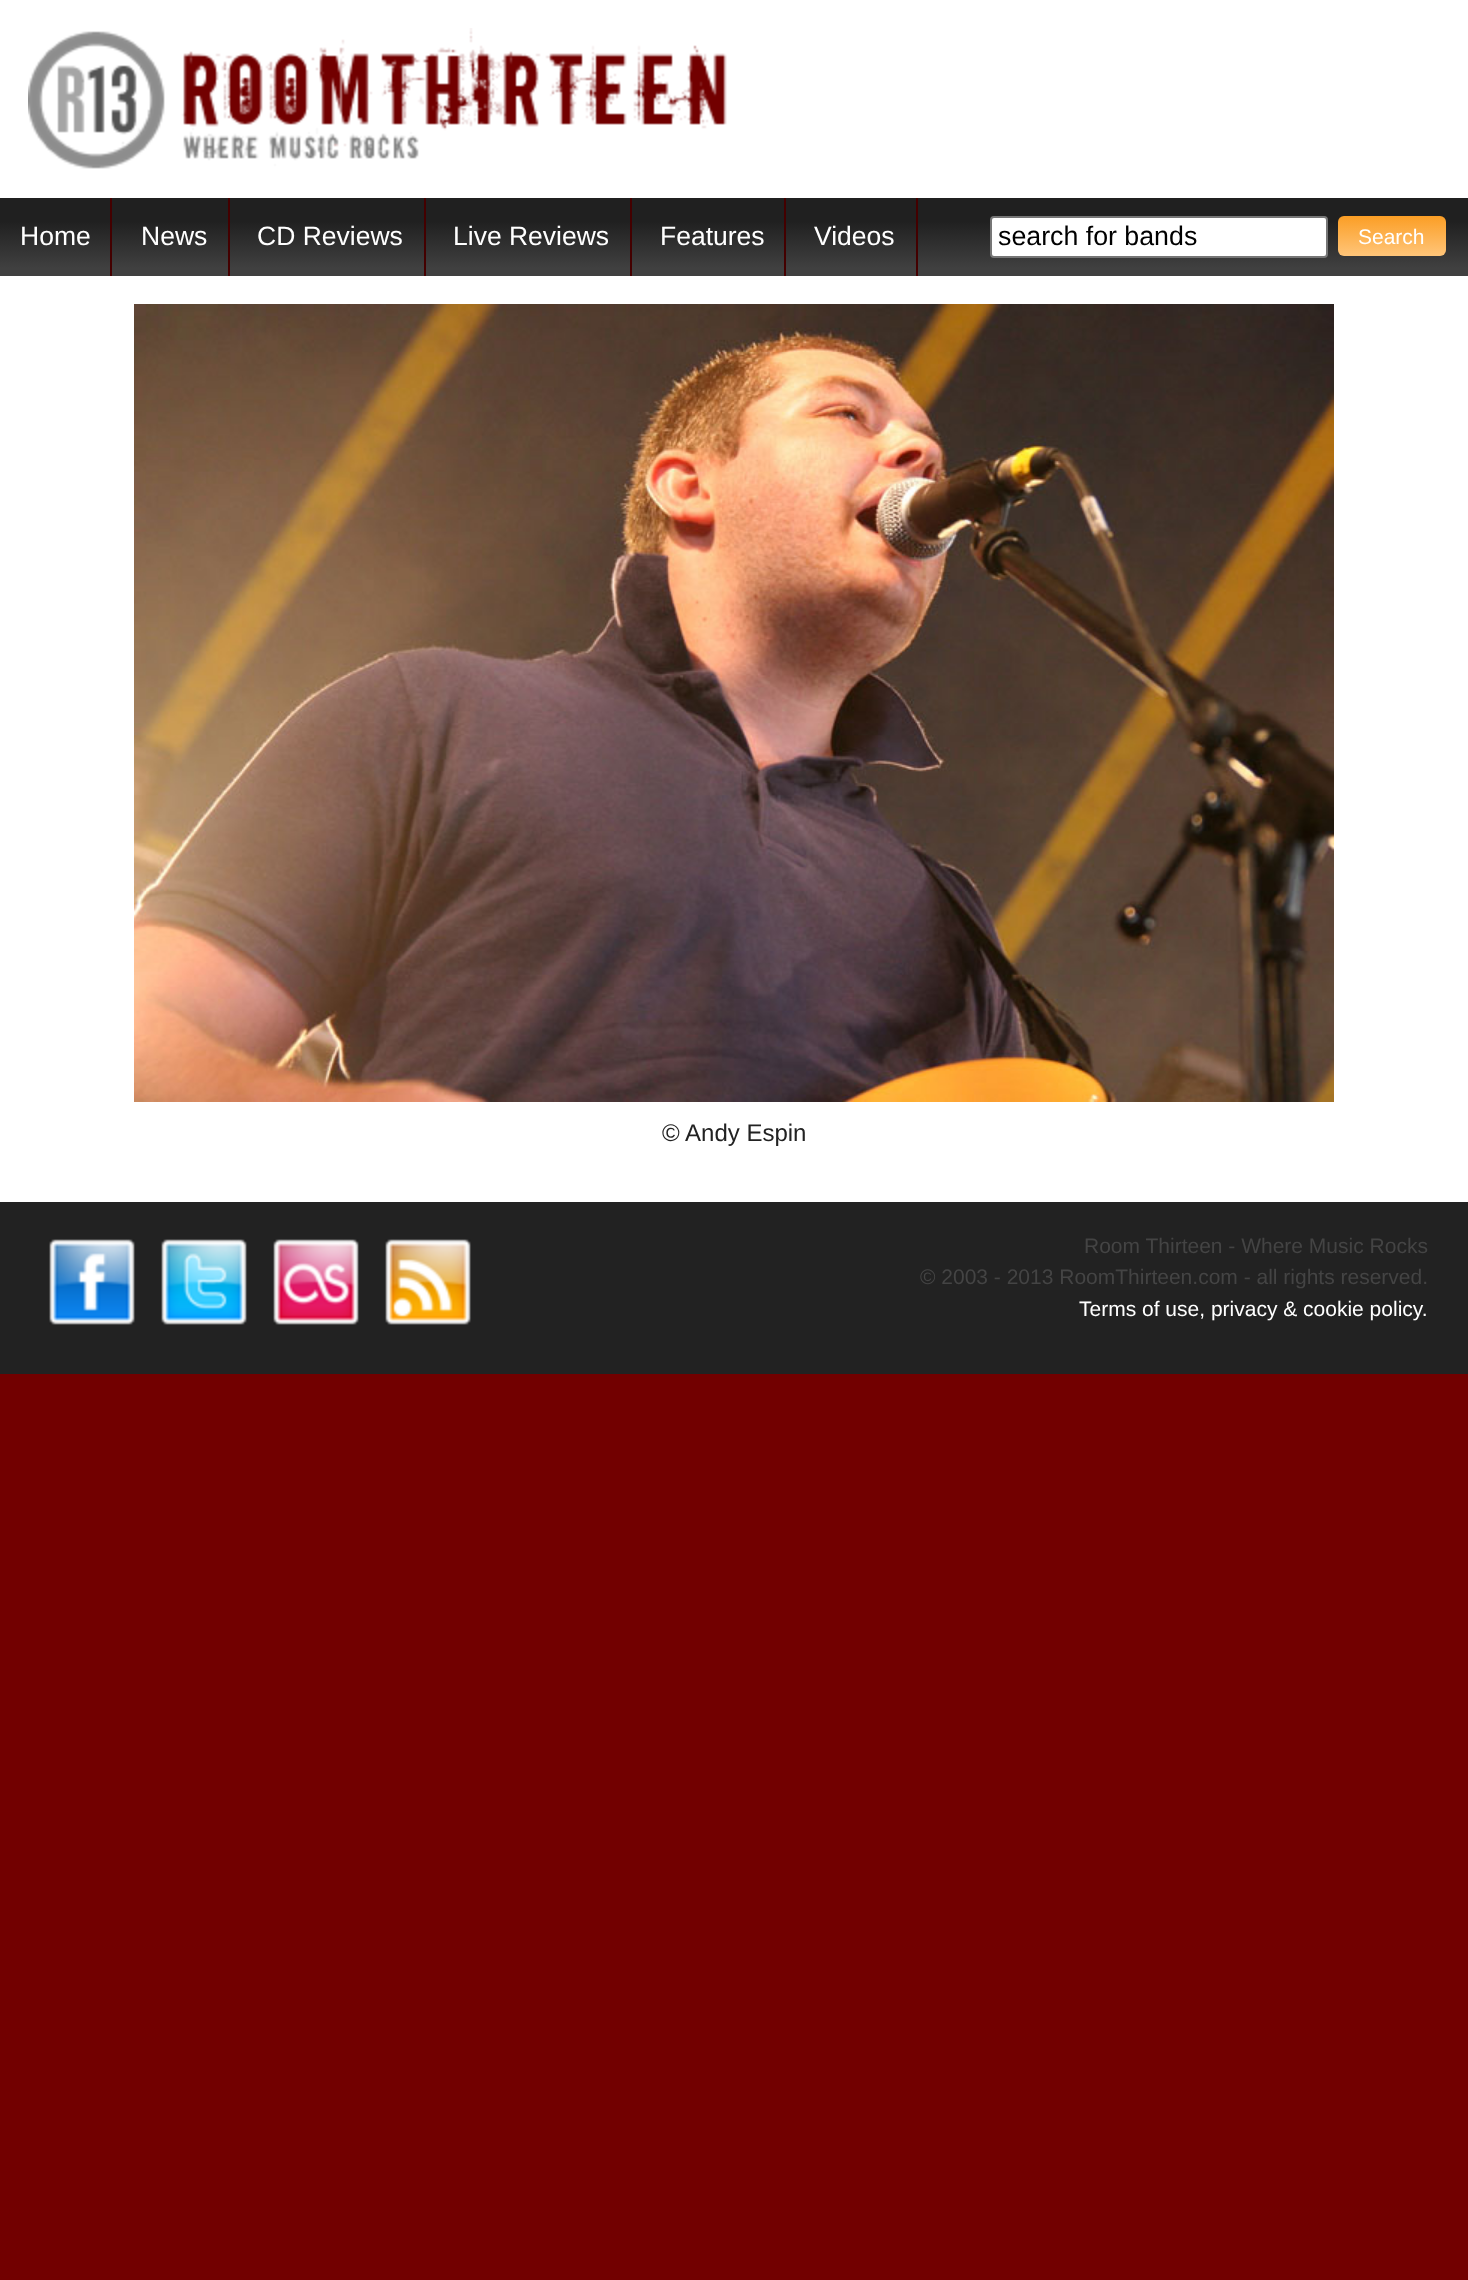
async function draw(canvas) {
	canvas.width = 1468;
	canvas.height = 2280;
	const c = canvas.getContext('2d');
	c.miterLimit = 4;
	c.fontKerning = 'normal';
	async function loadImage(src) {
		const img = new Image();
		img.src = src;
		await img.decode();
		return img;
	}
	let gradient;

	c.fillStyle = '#720000';
	c.fillRect(0, 0, 1468, 2280);
	c.fillStyle = '#fff';
	c.fillRect(0, 0, 1468, 198);
	c.drawImage(await loadImage('img1.png'), 28, 28, 699, 141);
	gradient = c.createLinearGradient(734, 198, 734, 276);
	gradient.addColorStop(0.3, '#202020');
	gradient.addColorStop(0.9, '#404040');
	c.fillStyle = gradient;
	c.fillRect(0, 198, 1468, 78);
	c.fillStyle = '#400';
	c.fillRect(110, 198, 2, 78);
	c.font = '26.5px Liberation Sans';
	c.fillStyle = '#fff';
	c.fillText('Home', 20, 245);
	c.fillStyle = '#400';
	c.fillRect(228, 198, 2, 78);
	c.fillStyle = '#fff';
	c.fillText('News', 141, 245);
	c.fillStyle = '#400';
	c.fillRect(424, 198, 2, 78);
	c.fillStyle = '#fff';
	c.fillText('CD Reviews', 257, 245);
	c.fillStyle = '#400';
	c.fillRect(630, 198, 2, 78);
	c.fillStyle = '#fff';
	c.fillText('Live Reviews', 453, 245);
	c.fillStyle = '#400';
	c.fillRect(784, 198, 2, 78);
	c.fillStyle = '#fff';
	c.fillText('Features', 660, 245);
	c.fillStyle = '#400';
	c.fillRect(916, 198, 2, 78);
	c.fillStyle = '#fff';
	c.fillText('Videos', 814, 245);
	c.beginPath();
	c.roundRect(991, 217, 336, 40, 3);
	c.fill();
	c.strokeStyle = '#767676';
	c.lineWidth = 2;
	c.stroke();
	c.font = '26.75px Liberation Sans';
	c.fillStyle = '#000';
	c.fillText('search for bands', 998, 245);
	gradient = c.createLinearGradient(1338, 256, 1338, 216);
	gradient.addColorStop(0, '#ffc477');
	gradient.addColorStop(0.03, '#ffc477');
	gradient.addColorStop(1, '#fb9e25');
	c.fillStyle = gradient;
	c.beginPath();
	c.roundRect(1338, 216, 108, 40, 6);
	c.fill();
	c.font = '21px Liberation Sans';
	c.fillStyle = '#fff';
	c.fillText('Search', 1358, 244);
	c.fillRect(0, 276, 1468, 926);
	c.drawImage(await loadImage('img2.png'), 134, 304, 1200, 798);
	c.font = '24px Liberation Sans';
	c.fillStyle = '#222';
	c.fillText('© Andy Espin', 662, 1141);
	c.fillRect(0, 1202, 1468, 172);
	c.drawImage(await loadImage('img3.png'), 49, 1239, 86, 86);
	c.drawImage(await loadImage('img4.png'), 161, 1239, 86, 86);
	c.drawImage(await loadImage('img5.png'), 273, 1239, 86, 86);
	c.drawImage(await loadImage('img6.png'), 385, 1239, 86, 86);
	c.font = '21px Liberation Sans';
	c.fillStyle = '#444';
	c.fillText('Room Thirteen - Where Music Rocks', 1084, 1253);
	c.fillText('© 2003 - 2013 RoomThirteen.com - all rights reserved.', 920, 1284);
	c.fillStyle = '#fff';
	c.fillText('Terms of use, privacy & cookie policy.', 1079, 1316);
}

draw(document.querySelector('canvas'));
